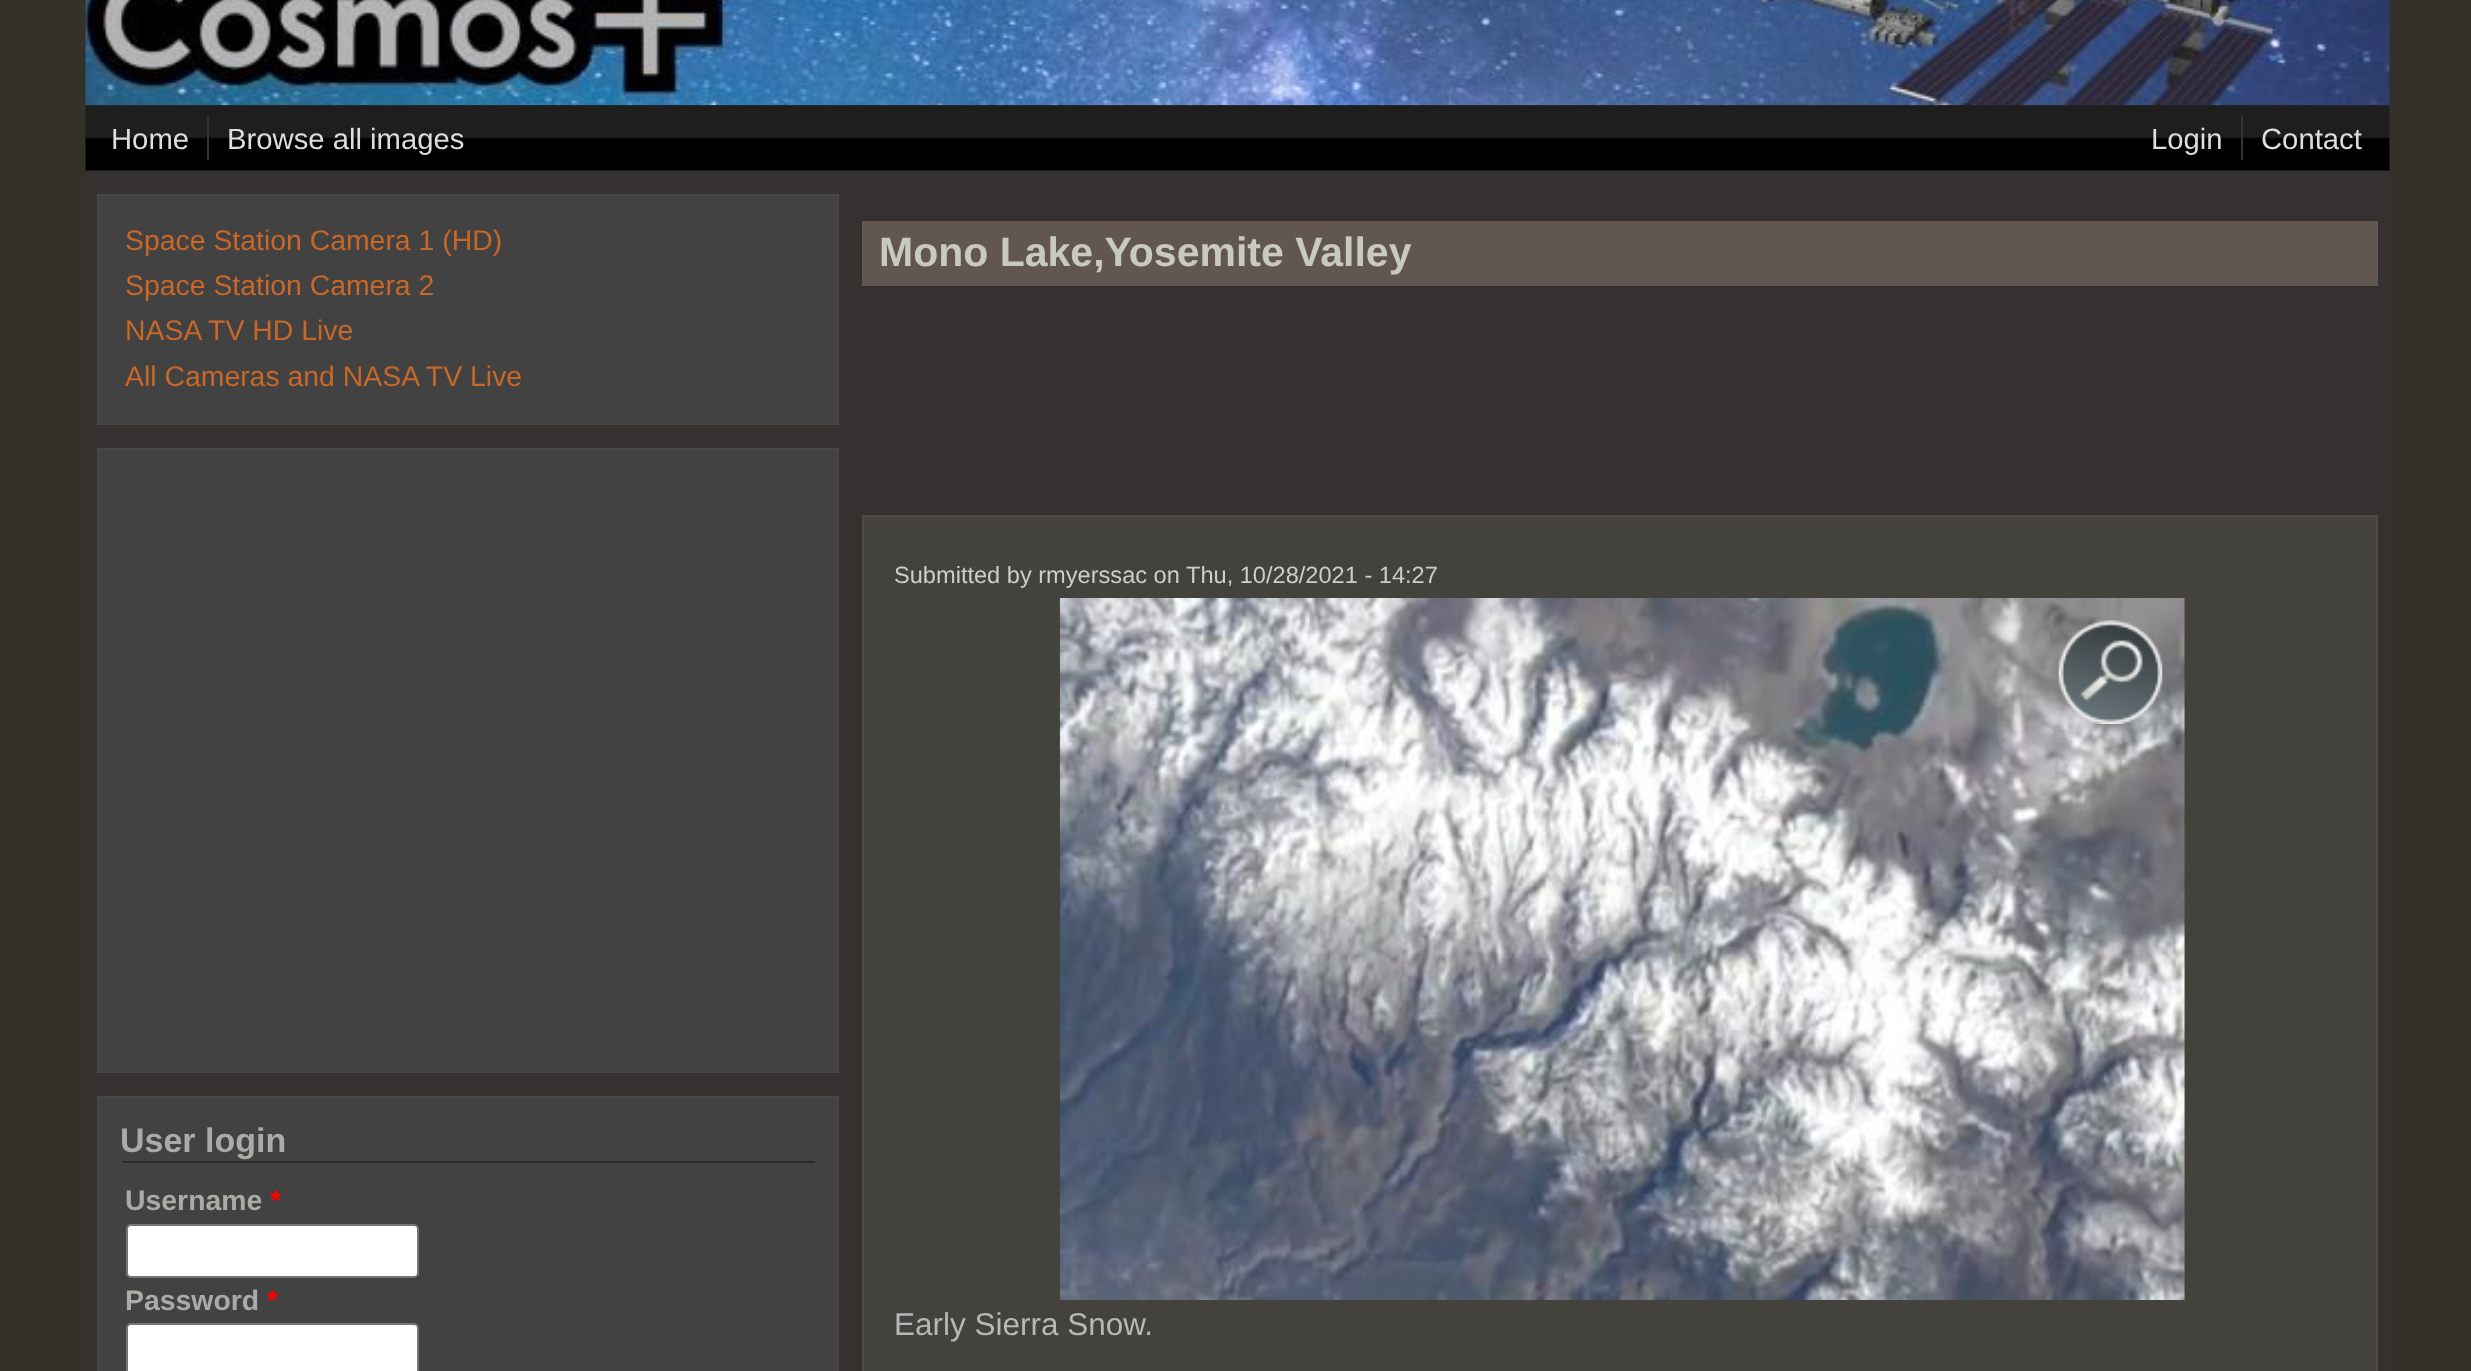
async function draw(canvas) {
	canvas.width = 2471;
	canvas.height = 1371;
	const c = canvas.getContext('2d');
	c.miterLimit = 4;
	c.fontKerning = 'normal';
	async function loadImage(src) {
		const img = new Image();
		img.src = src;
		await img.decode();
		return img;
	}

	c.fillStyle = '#333129';
	c.fillRect(0, 0, 2471, 1371);
	c.fillStyle = '#353131';
	c.fillRect(86, 0, 2304, 1371);
	c.drawImage(await loadImage('img1.png'), 85, 0, 2305, 106);
	c.drawImage(await loadImage('img2.png'), 85, 105, 2305, 66);
	c.font = '29.25px Liberation Sans';
	c.fillStyle = '#ddd';
	c.fillText('Home', 111, 149);
	c.fillStyle = '#333';
	c.fillRect(207, 115, 2, 45);
	c.fillStyle = '#ddd';
	c.fillText('Browse all images', 227, 149);
	c.fillText('Login', 2151, 149);
	c.fillStyle = '#333';
	c.fillRect(2241, 115, 2, 45);
	c.fillStyle = '#ddd';
	c.fillText('Contact', 2261, 149);
	c.fillStyle = '#424242';
	c.beginPath();
	c.rect(98, 195, 740, 229);
	c.fill();
	c.strokeStyle = '#474747';
	c.lineWidth = 2;
	c.stroke();
	c.font = '28.4px Liberation Sans';
	c.fillStyle = '#c86828';
	for (const [text, x, y] of [
		['Space Station Camera 1 (HD)', 125, 250],
		['Space Station Camera 2', 125, 295],
		['NASA TV HD Live', 125, 340],
		['All Cameras and NASA TV Live', 125, 386],
	]) {
		c.fillText(text, x, y);
	}
	c.fillStyle = '#424242';
	c.beginPath();
	c.rect(98, 449, 740, 623);
	c.fill();
	c.stroke();
	c.beginPath();
	c.rect(98, 1097, 740, 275);
	c.fill();
	c.stroke();
	c.fillStyle = '#2c2c2c';
	c.fillRect(122, 1161, 693, 2);
	c.font = 'bold 34px Liberation Sans';
	c.fillStyle = '#aaaba6';
	c.fillText('User login', 120, 1152);
	c.font = 'bold 28.4px Liberation Sans';
	c.fillText('Username', 125, 1210);
	c.fillStyle = '#f00';
	c.fillText('*', 270, 1210);
	c.fillStyle = '#fff';
	c.beginPath();
	c.roundRect(127, 1225, 291, 52, 4);
	c.fill();
	c.strokeStyle = '#767676';
	c.stroke();
	c.fillStyle = '#aaaba6';
	c.fillText('Password', 125, 1310);
	c.fillStyle = '#f00';
	c.fillText('*', 267, 1310);
	c.fillStyle = '#fff';
	c.beginPath();
	c.roundRect(127, 1324, 291, 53, 4);
	c.fill();
	c.stroke();
	c.fillStyle = '#625750';
	c.fillRect(862, 221, 1516, 65);
	c.font = 'bold 41px Liberation Sans';
	c.fillStyle = '#c8c9c0';
	c.fillText('Mono Lake,Yosemite Valley', 879, 266);
	c.fillStyle = '#44423c';
	c.beginPath();
	c.rect(863, 516, 1514, 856);
	c.fill();
	c.strokeStyle = '#4d4b42';
	c.stroke();
	c.font = '23.6px Liberation Sans';
	c.fillStyle = '#cdcdcd';
	c.fillText('Submitted by rmyerssac on Thu, 10/28/2021 - 14:27', 894, 583);
	c.drawImage(await loadImage('img3.png'), 1059, 598, 1126, 702);
	c.drawImage(await loadImage('img4.png'), 2058, 620, 105, 104);
	c.font = '31.5px Liberation Sans';
	c.fillStyle = '#b8b7b7';
	c.fillText('Early Sierra Snow.', 894, 1335);
}

draw(document.querySelector('canvas'));
